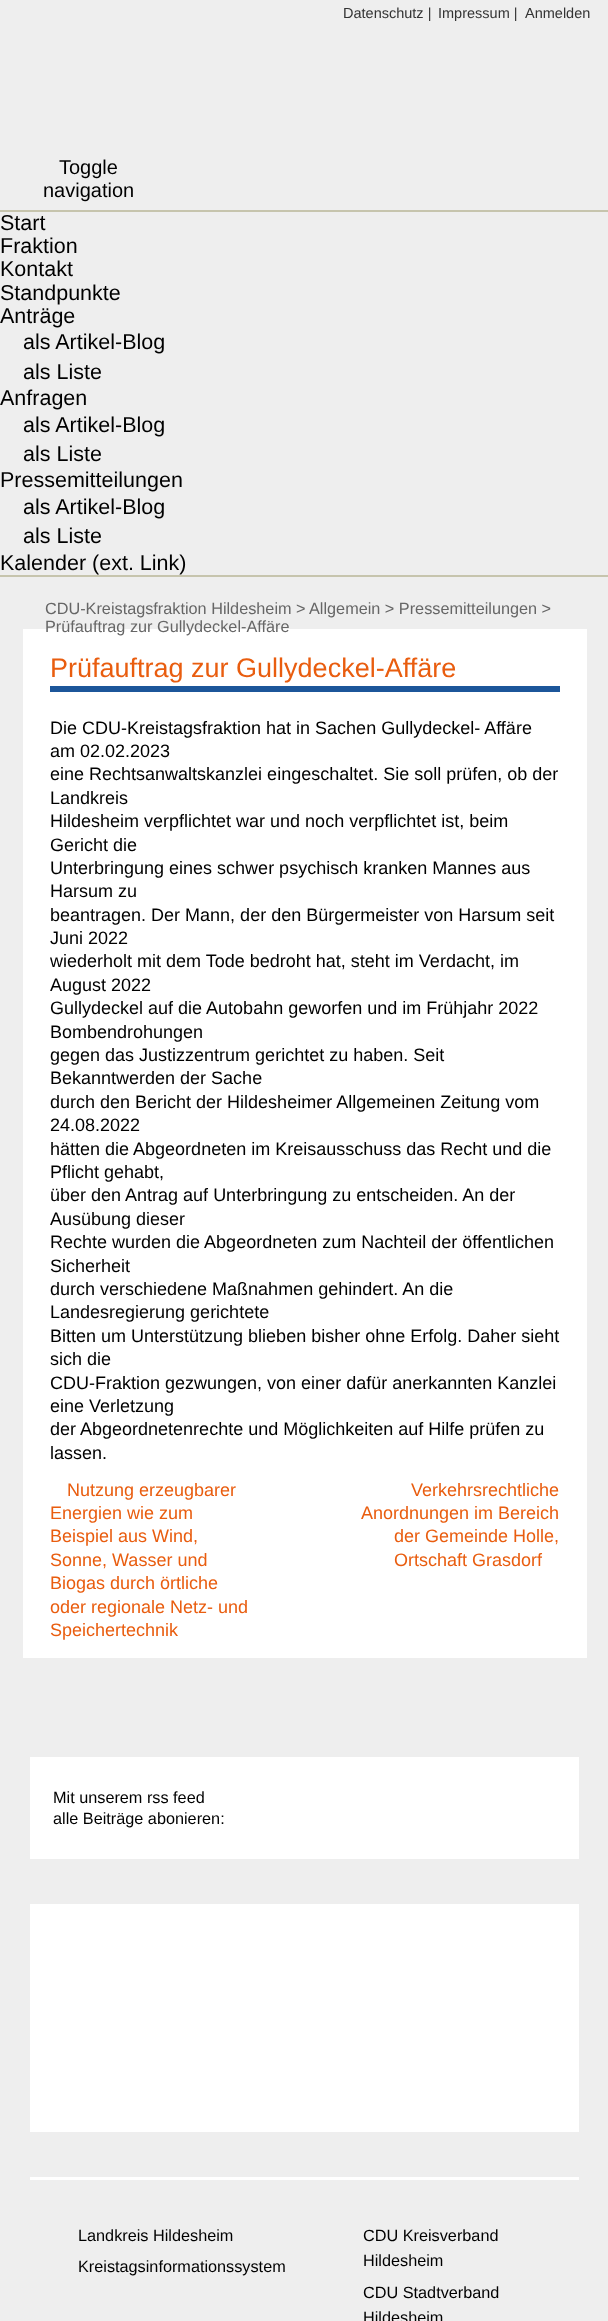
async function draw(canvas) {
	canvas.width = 608;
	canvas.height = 2321;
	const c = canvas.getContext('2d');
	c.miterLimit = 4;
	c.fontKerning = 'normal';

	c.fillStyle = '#eee';
	c.fillRect(0, 0, 608, 2321);
	c.font = '14.5px Liberation Sans';
	c.fillStyle = '#333';
	for (const [text, x, y] of [
		['Datenschutz |', 343, 18],
		['Impressum |', 438, 18],
		['Anmelden', 525, 18],
	]) {
		c.fillText(text, x, y);
	}
	c.font = '20px Liberation Sans';
	c.fillStyle = '#000';
	c.fillText('Toggle', 59, 174);
	c.fillText('navigation', 43, 197);
	c.fillStyle = '#c6c4ad';
	c.fillRect(0, 210, 608, 2);
	c.fillRect(0, 575, 608, 2);
	c.font = '21.5px Liberation Sans';
	c.fillStyle = '#000';
	for (const [text, x, y] of [
		['Start', 0, 230],
		['Fraktion', 0, 253],
		['Kontakt', 0, 276],
		['Standpunkte', 0, 300],
		['Anträge', 0, 323],
		['als Artikel-Blog', 23, 349],
		['als Liste', 23, 379],
		['Anfragen', 0, 405],
		['als Artikel-Blog', 23, 432],
		['als Liste', 23, 461],
		['Pressemitteilungen', 0, 487],
		['als Artikel-Blog', 23, 514],
		['als Liste', 23, 543],
		['Kalender (ext. Link)', 0, 570],
	]) {
		c.fillText(text, x, y);
	}
	c.font = '16.25px Liberation Sans';
	c.fillStyle = '#666';
	c.fillText('CDU-Kreistagsfraktion Hildesheim >', 45, 614);
	c.fillText('Allgemein > Pressemitteilungen >', 309, 614);
	c.fillStyle = '#fff';
	c.fillRect(23, 629, 564, 1029);
	c.fillStyle = '#666';
	c.fillText('Prüfauftrag zur Gullydeckel-Affäre', 45, 632);
	c.fillStyle = '#1c569a';
	c.fillRect(50, 686, 510, 6);
	c.font = '27px Liberation Sans';
	c.fillStyle = '#e95d0f';
	c.fillText('Prüfauftrag zur Gullydeckel-Affäre', 50, 677);
	c.font = '18px Liberation Sans';
	c.fillStyle = '#000';
	for (const [text, x, y] of [
		['Die CDU-Kreistagsfraktion hat in Sachen Gullydeckel- Affäre', 50, 734],
		['am 02.02.2023', 50, 757],
		['eine Rechtsanwaltskanzlei eingeschaltet. Sie soll prüfen, ob der', 50, 780],
		['Landkreis', 50, 804],
		['Hildesheim verpflichtet war und noch verpflichtet ist, beim', 50, 827],
		['Gericht die', 50, 851],
		['Unterbringung eines schwer psychisch kranken Mannes aus', 50, 874],
		['Harsum zu', 50, 897],
		['beantragen. Der Mann, der den Bürgermeister von Harsum seit', 50, 921],
		['Juni 2022', 50, 944],
		['wiederholt mit dem Tode bedroht hat, steht im Verdacht, im', 50, 967],
		['August 2022', 50, 991],
		['Gullydeckel auf die Autobahn geworfen und im Frühjahr 2022', 50, 1014],
		['Bombendrohungen', 50, 1038],
		['gegen das Justizzentrum gerichtet zu haben. Seit', 50, 1061],
		['Bekanntwerden der Sache', 50, 1084],
		['durch den Bericht der Hildesheimer Allgemeinen Zeitung vom', 50, 1108],
		['24.08.2022', 50, 1131],
		['hätten die Abgeordneten im Kreisausschuss das Recht und die', 50, 1155],
		['Pflicht gehabt,', 50, 1178],
		['über den Antrag auf Unterbringung zu entscheiden. An der', 50, 1201],
		['Ausübung dieser', 50, 1225],
		['Rechte wurden die Abgeordneten zum Nachteil der öffentlichen', 50, 1248],
		['Sicherheit', 50, 1272],
		['durch verschiedene Maßnahmen gehindert. An die', 50, 1295],
		['Landesregierung gerichtete', 50, 1318],
		['Bitten um Unterstützung blieben bisher ohne Erfolg. Daher sieht', 50, 1342],
		['sich die', 50, 1365],
		['CDU-Fraktion gezwungen, von einer dafür anerkannten Kanzlei', 50, 1389],
		['eine Verletzung', 50, 1412],
		['der Abgeordnetenrechte und Möglichkeiten auf Hilfe prüfen zu', 50, 1435],
		['lassen.', 50, 1459],
	]) {
		c.fillText(text, x, y);
	}
	c.fillStyle = '#e95d0f';
	for (const [text, x, y] of [
		['Nutzung erzeugbarer', 67, 1496],
		['Energien wie zum', 50, 1519],
		['Beispiel aus Wind,', 50, 1542],
		['Sonne, Wasser und', 50, 1566],
		['Biogas durch örtliche', 50, 1589],
		['oder regionale Netz- und', 50, 1613],
		['Speichertechnik', 50, 1636],
		['Verkehrsrechtliche', 411, 1496],
		['Anordnungen im Bereich', 361, 1519],
		['der Gemeinde Holle,', 394, 1542],
		['Ortschaft Grasdorf', 394, 1566],
	]) {
		c.fillText(text, x, y);
	}
	c.fillStyle = '#fff';
	c.fillRect(30, 1757, 549, 423);
	c.fillStyle = '#eee';
	c.fillRect(30, 1859, 549, 45);
	c.font = '16.25px Liberation Sans';
	c.fillStyle = '#000';
	c.fillText('Mit unserem rss feed', 53, 1803);
	c.fillText('alle Beiträge abonieren:', 53, 1824);
	c.fillStyle = '#eee';
	c.fillRect(30, 2132, 549, 45);
	c.fillStyle = '#000';
	for (const [text, x, y] of [
		['Landkreis Hildesheim', 78, 2241],
		['Kreistagsinformationssystem', 78, 2272],
		['CDU Kreisverband', 363, 2241],
		['Hildesheim', 363, 2266],
		['CDU Stadtverband', 363, 2298],
		['Hildesheim', 363, 2323],
	]) {
		c.fillText(text, x, y);
	}
}

draw(document.querySelector('canvas'));
